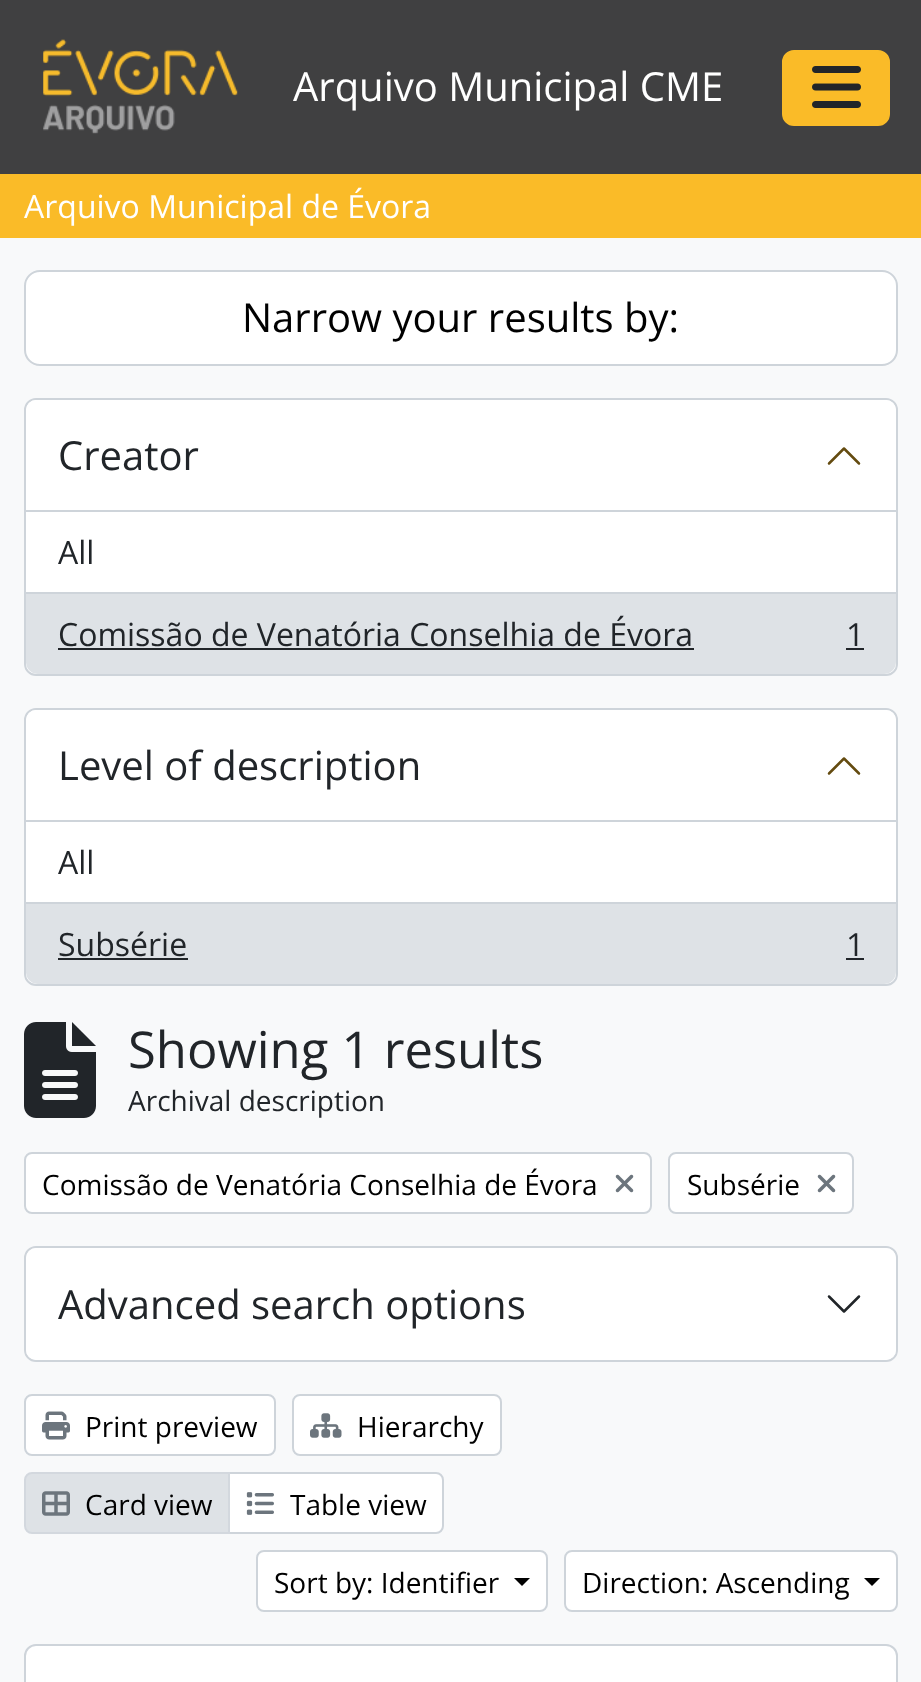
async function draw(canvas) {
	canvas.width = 921;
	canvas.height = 1682;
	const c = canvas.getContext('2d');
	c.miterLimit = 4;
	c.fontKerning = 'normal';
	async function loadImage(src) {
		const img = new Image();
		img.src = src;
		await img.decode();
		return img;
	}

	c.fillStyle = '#f8f9fa';
	c.fillRect(0, 0, 921, 1682);
	c.fillStyle = '#404041';
	c.fillRect(0, 0, 921, 174);
	c.drawImage(await loadImage('img1.png'), 43, 39, 195, 95);
	c.font = '40px Open Sans';
	c.fillStyle = '#fff';
	c.fillText('Arquivo Municipal CME', 293, 101);
	c.fillStyle = '#fabb28';
	c.beginPath();
	c.roundRect(783, 51, 106, 74, 11);
	c.fill();
	c.strokeStyle = '#fabb28';
	c.lineWidth = 2;
	c.stroke();
	c.drawImage(await loadImage('img2.png'), 812, 66, 49, 42);
	c.fillRect(0, 174, 921, 64);
	c.font = '32px Open Sans';
	c.fillStyle = '#fff';
	c.fillText('Arquivo Municipal de Évora', 24, 218);
	c.beginPath();
	c.roundRect(25, 271, 872, 94, 15);
	c.fill();
	c.strokeStyle = '#ced4da';
	c.stroke();
	c.font = '40px Open Sans';
	c.fillStyle = '#000';
	c.fillText('Narrow your results by:', 242, 332);
	c.fillStyle = '#fff';
	c.beginPath();
	c.roundRect(25, 399, 872, 276, 11);
	c.fill();
	c.stroke();
	c.beginPath();
	c.roundRect(26, 400, 870, 112, [10, 10, 0, 0]);
	c.fill();
	c.fillStyle = '#ced4da';
	c.fillRect(26, 510, 870, 2);
	c.fillStyle = '#212529';
	c.fillText('Creator', 58, 470);
	c.beginPath();
	c.moveTo(859, 463.5);
	c.lineTo(844, 448.5);
	c.lineTo(829, 463.5);
	c.strokeStyle = '#644b10';
	c.lineWidth = 2.5;
	c.lineCap = 'round';
	c.lineJoin = 'round';
	c.stroke();
	c.fillStyle = '#ced4da';
	c.fillRect(26, 592, 870, 2);
	c.font = '32px Open Sans';
	c.fillStyle = '#212529';
	c.fillText('All', 58, 564);
	c.fillStyle = '#dee2e6';
	c.beginPath();
	c.roundRect(26, 594, 870, 80, [0, 0, 12, 12]);
	c.fill();
	c.fillStyle = '#212529';
	c.fillText('Comissão de Venatória Conselhia de Évora', 58, 646);
	c.fillRect(58, 648, 636, 2);
	c.fillText('1', 846, 646);
	c.fillRect(846, 648, 18, 2);
	c.fillStyle = '#fff';
	c.beginPath();
	c.roundRect(25, 709, 872, 276, 11);
	c.fill();
	c.strokeStyle = '#ced4da';
	c.lineWidth = 2;
	c.lineJoin = 'miter';
	c.stroke();
	c.beginPath();
	c.roundRect(26, 710, 870, 112, [10, 10, 0, 0]);
	c.fill();
	c.fillStyle = '#ced4da';
	c.fillRect(26, 820, 870, 2);
	c.font = '40px Open Sans';
	c.fillStyle = '#212529';
	c.fillText('Level of description', 58, 780);
	c.beginPath();
	c.moveTo(859, 773.5);
	c.lineTo(844, 758.5);
	c.lineTo(829, 773.5);
	c.strokeStyle = '#644b10';
	c.lineWidth = 2.5;
	c.lineJoin = 'round';
	c.stroke();
	c.fillStyle = '#ced4da';
	c.fillRect(26, 902, 870, 2);
	c.font = '32px Open Sans';
	c.fillStyle = '#212529';
	c.fillText('All', 58, 874);
	c.fillStyle = '#dee2e6';
	c.beginPath();
	c.roundRect(26, 904, 870, 80, [0, 0, 12, 12]);
	c.fill();
	c.fillStyle = '#212529';
	c.fillText('Subsérie', 58, 956);
	c.fillRect(58, 958, 130, 2);
	c.fillText('1', 846, 956);
	c.fillRect(846, 958, 18, 2);
	c.drawImage(await loadImage('img3.png'), 24, 1022, 72, 96);
	c.font = '50.75px Open Sans';
	c.fillText('Showing 1 results', 128, 1068);
	c.font = '28px Open Sans';
	c.fillText('Archival description', 128, 1111);
	c.fillStyle = '#fff';
	c.beginPath();
	c.roundRect(25, 1153, 626, 60, 7);
	c.fill();
	c.strokeStyle = '#ced4da';
	c.lineWidth = 2;
	c.lineJoin = 'miter';
	c.stroke();
	c.fillStyle = '#000';
	c.fillText('Comissão de Venatória Conselhia de Évora', 42, 1195);
	c.drawImage(await loadImage('img4.png'), 615, 1174, 19, 19);
	c.fillStyle = '#fff';
	c.beginPath();
	c.roundRect(669, 1153, 184, 60, 7);
	c.fill();
	c.stroke();
	c.fillStyle = '#000';
	c.fillText('Subsérie', 687, 1195);
	c.drawImage(await loadImage('img4.png'), 817, 1174, 19, 19);
	c.beginPath();
	c.roundRect(25, 1247, 872, 114, 11);
	c.stroke();
	c.fillStyle = '#fff';
	c.beginPath();
	c.roundRect(26, 1248, 870, 112, 10);
	c.fill();
	c.font = '40px Open Sans';
	c.fillStyle = '#212529';
	c.fillText('Advanced search options', 58, 1319);
	c.beginPath();
	c.moveTo(829, 1296.5);
	c.lineTo(844, 1311.5);
	c.lineTo(859, 1296.5);
	c.strokeStyle = '#212529';
	c.lineWidth = 2.5;
	c.lineJoin = 'round';
	c.stroke();
	c.fillStyle = '#fff';
	c.beginPath();
	c.roundRect(25, 1395, 250, 60, 7);
	c.fill();
	c.strokeStyle = '#ced4da';
	c.lineWidth = 2;
	c.lineJoin = 'miter';
	c.stroke();
	c.drawImage(await loadImage('img5.png'), 42, 1411, 28, 29);
	c.font = '28px Open Sans';
	c.fillStyle = '#000';
	c.fillText('Print preview', 85, 1437);
	c.fillStyle = '#fff';
	c.beginPath();
	c.roundRect(293, 1395, 208, 60, 7);
	c.fill();
	c.stroke();
	c.drawImage(await loadImage('img6.png'), 310, 1413, 32, 25);
	c.fillStyle = '#000';
	c.fillText('Hierarchy', 357, 1437);
	c.fillStyle = '#fff';
	c.beginPath();
	c.roundRect(229, 1473, 214, 60, [0, 7, 7, 0]);
	c.fill();
	c.stroke();
	c.fillStyle = '#dee2e6';
	c.beginPath();
	c.roundRect(25, 1473, 204, 60, [7, 0, 0, 7]);
	c.fill();
	c.strokeStyle = '#d3d8de';
	c.stroke();
	c.drawImage(await loadImage('img7.png'), 42, 1491, 28, 25);
	c.fillStyle = '#000';
	c.fillText('Card view', 85, 1515);
	c.drawImage(await loadImage('img8.png'), 246, 1492, 28, 23);
	c.fillText('Table view', 290, 1515);
	c.fillStyle = '#fff';
	c.beginPath();
	c.roundRect(257, 1551, 290, 60, 7);
	c.fill();
	c.strokeStyle = '#ced4da';
	c.stroke();
	c.fillStyle = '#000';
	c.fillText('Sort by: Identifier', 274, 1593);
	c.beginPath();
	c.moveTo(514, 1578);
	c.lineTo(530, 1578);
	c.lineTo(522, 1586);
	c.closePath();
	c.fill();
	c.fillStyle = '#fff';
	c.beginPath();
	c.roundRect(565, 1551, 332, 60, 7);
	c.fill();
	c.stroke();
	c.fillStyle = '#000';
	c.fillText('Direction: Ascending', 582, 1593);
	c.beginPath();
	c.moveTo(864, 1578);
	c.lineTo(880, 1578);
	c.lineTo(872, 1586);
	c.closePath();
	c.fill();
	c.fillStyle = '#fff';
	c.beginPath();
	c.roundRect(25, 1645, 872, 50, 11);
	c.fill();
	c.stroke();
}

draw(document.querySelector('canvas'));
